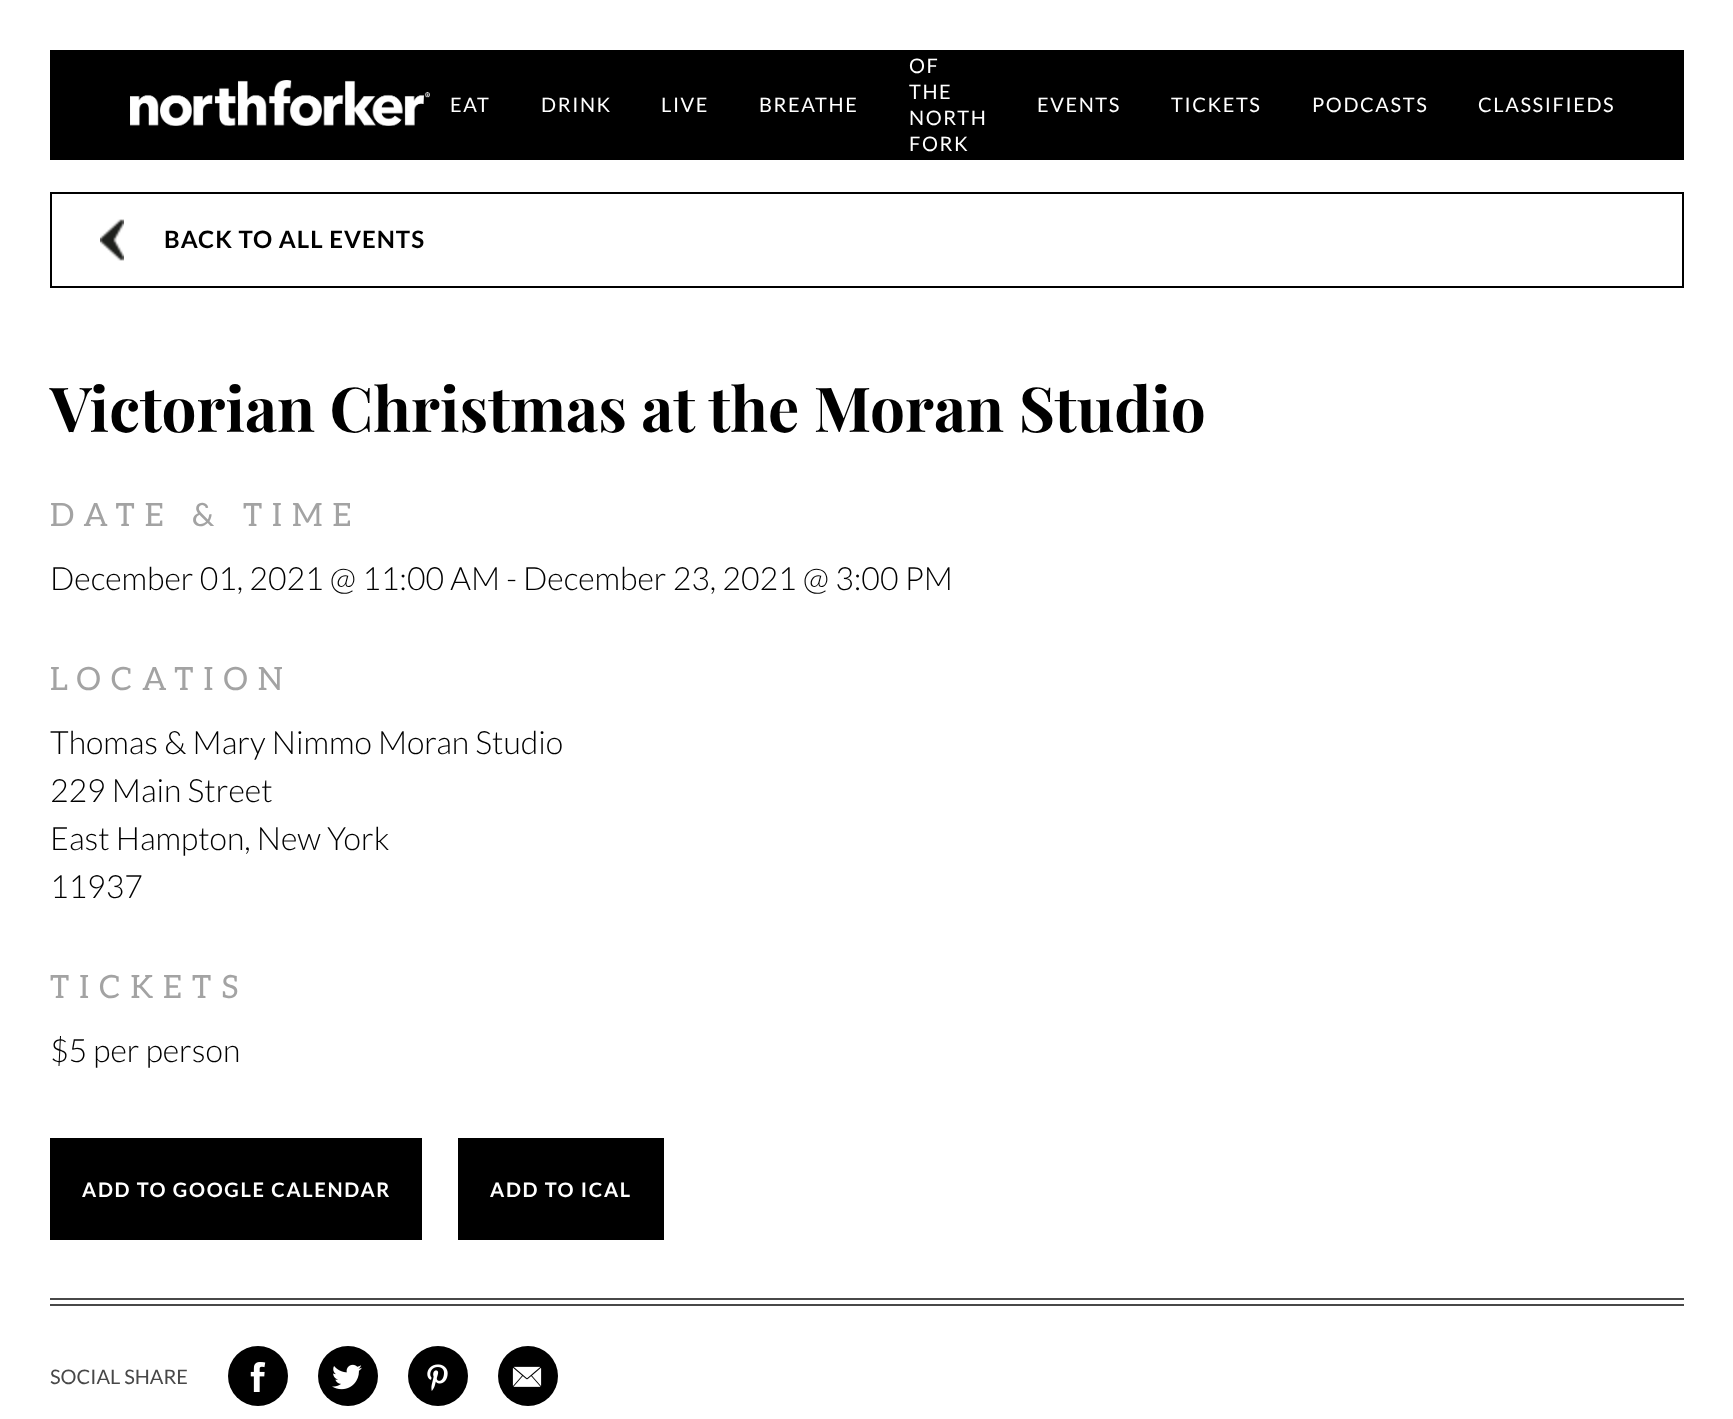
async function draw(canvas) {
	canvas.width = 1733;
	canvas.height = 1419;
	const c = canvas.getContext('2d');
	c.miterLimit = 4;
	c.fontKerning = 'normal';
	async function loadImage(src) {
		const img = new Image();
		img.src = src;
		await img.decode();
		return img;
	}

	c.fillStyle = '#fff';
	c.fillRect(0, 0, 1733, 1419);
	c.fillStyle = '#000';
	c.fillRect(50, 50, 1634, 110);
	c.drawImage(await loadImage('img1.png'), 130, 80, 300, 46);
	c.letterSpacing = '1.6px';
	c.font = '20px Lato';
	c.fillStyle = '#fff';
	for (const [text, x, y] of [
		['EAT', 450, 112],
		['DRINK', 541, 112],
		['LIVE', 661, 112],
		['BREATHE', 759, 112],
		['OF', 909, 73],
		['THE', 909, 99],
		['NORTH', 909, 125],
		['FORK', 909, 151],
		['EVENTS', 1037, 112],
		['TICKETS', 1171, 112],
		['PODCASTS', 1312, 112],
		['CLASSIFIEDS', 1478, 112],
	]) {
		c.fillText(text, x, y);
	}
	c.strokeStyle = '#000';
	c.lineWidth = 2;
	c.strokeRect(51, 193, 1632, 94);
	c.drawImage(await loadImage('img2.png'), 100, 219, 24, 42);
	c.letterSpacing = '1px';
	c.font = 'bold 24px Lato';
	c.fillStyle = '#000';
	c.fillText('BACK TO ALL EVENTS', 164, 248);
	c.letterSpacing = '0px';
	c.font = 'bold 62px Playfair Display';
	c.fillText('Victorian Christmas at the Moran Studio', 50, 432);
	c.letterSpacing = '10px';
	c.font = '32px Aleo';
	c.fillStyle = '#a3a3a3';
	c.fillText('DATE & TIME', 50, 526);
	c.letterSpacing = '0px';
	c.font = '300 32px Lato';
	c.fillStyle = '#000';
	c.fillText('December 01, 2021 @ 11:00 AM - December 23, 2021 @ 3:00 PM', 50, 590);
	c.letterSpacing = '10px';
	c.font = '32px Aleo';
	c.fillStyle = '#a3a3a3';
	c.fillText('LOCATION', 50, 690);
	c.letterSpacing = '0px';
	c.font = '300 32px Lato';
	c.fillStyle = '#000';
	for (const [text, x, y] of [
		['Thomas & Mary Nimmo Moran Studio', 50, 754],
		['229 Main Street', 50, 802],
		['East Hampton, New York', 50, 850],
		['11937', 50, 898],
	]) {
		c.fillText(text, x, y);
	}
	c.letterSpacing = '10px';
	c.font = '32px Aleo';
	c.fillStyle = '#a3a3a3';
	c.fillText('TICKETS', 50, 998);
	c.letterSpacing = '0px';
	c.font = '300 32px Lato';
	c.fillStyle = '#000';
	c.fillText('$5 per person', 50, 1062);
	c.fillRect(50, 1138, 372, 102);
	c.letterSpacing = '1.7px';
	c.font = 'bold 20px Lato';
	c.fillStyle = '#fff';
	c.fillText('ADD TO GOOGLE CALENDAR', 82, 1197);
	c.fillStyle = '#000';
	c.fillRect(458, 1138, 206, 102);
	c.fillStyle = '#fff';
	c.fillText('ADD TO ICAL', 490, 1197);
	c.fillStyle = '#484848';
	c.fillRect(50, 1304, 1634, 2);
	c.fillRect(50, 1298, 1634, 2);
	c.letterSpacing = '0px';
	c.font = '20px Lato';
	c.fillText('SOCIAL SHARE', 50, 1384);
	c.fillStyle = '#000';
	c.beginPath();
	c.arc(258, 1376, 30, 0, 2 * Math.PI);
	c.fill();
	c.drawImage(await loadImage('img3.png'), 250, 1362, 16, 30);
	c.beginPath();
	c.arc(348, 1376, 30, 0, 2 * Math.PI);
	c.fill();
	c.drawImage(await loadImage('img4.png'), 332, 1364, 30, 26);
	c.beginPath();
	c.arc(438, 1376, 30, 0, 2 * Math.PI);
	c.fill();
	c.drawImage(await loadImage('img5.png'), 427, 1364, 21, 27);
	c.beginPath();
	c.arc(528, 1376, 30, 0, 2 * Math.PI);
	c.fill();
	c.drawImage(await loadImage('img6.png'), 512, 1366, 30, 21);
}

draw(document.querySelector('canvas'));
